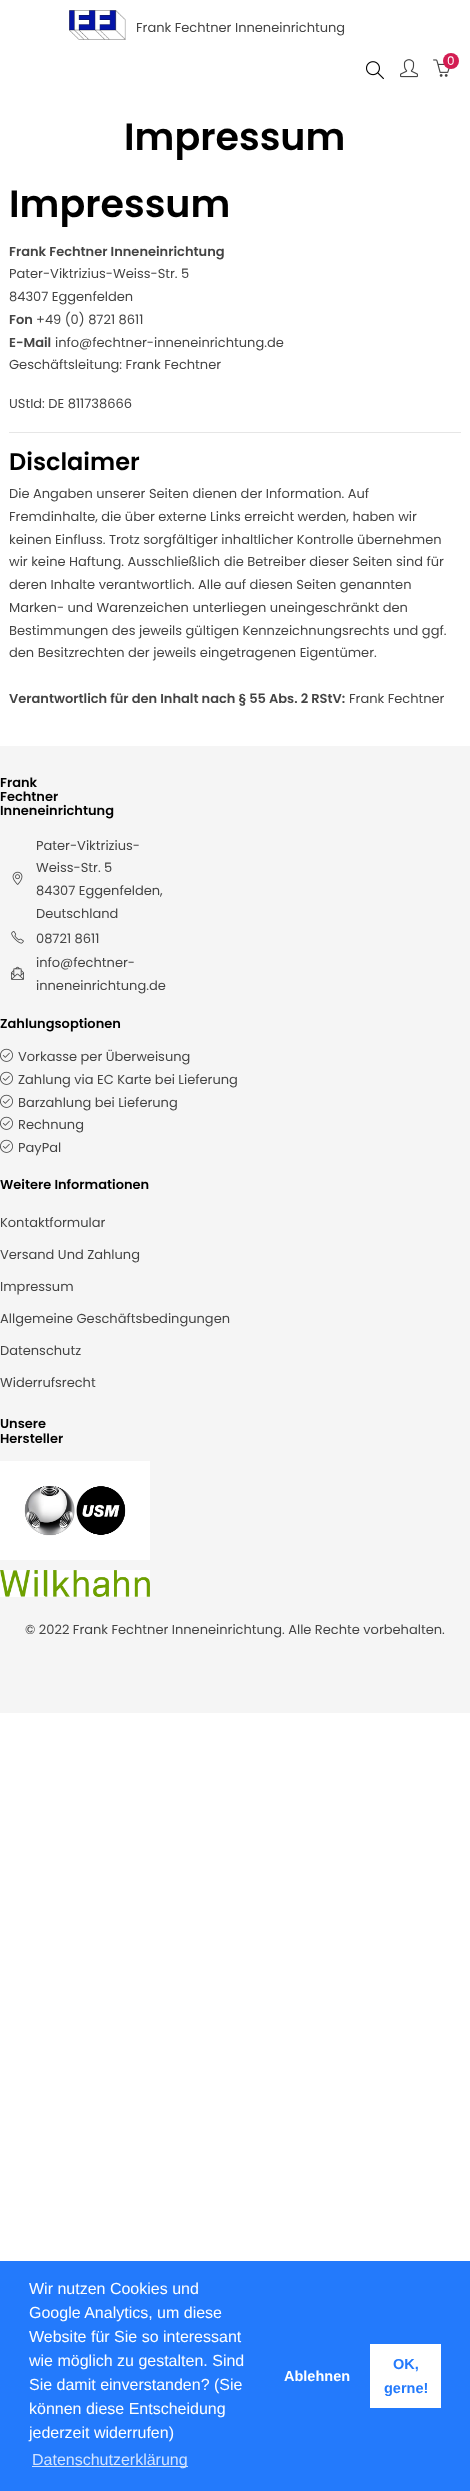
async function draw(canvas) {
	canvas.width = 470;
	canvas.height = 2491;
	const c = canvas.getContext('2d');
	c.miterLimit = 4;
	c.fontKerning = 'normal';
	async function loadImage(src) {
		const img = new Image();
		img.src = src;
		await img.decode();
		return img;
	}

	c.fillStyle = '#fff';
	c.fillRect(0, 0, 470, 2491);
	c.drawImage(await loadImage('img1.png'), 69, 10, 57, 30);
	c.font = '13px Poppins';
	c.fillStyle = '#444';
	c.fillText('Frank Fechtner Inneneinrichtung', 136, 32);
	c.drawImage(await loadImage('img2.png'), 366, 61, 18, 19);
	c.drawImage(await loadImage('img3.png'), 400, 59, 18, 19);
	c.drawImage(await loadImage('img4.png'), 433, 59, 17, 18);
	c.fillStyle = '#d31d52';
	c.beginPath();
	c.arc(451, 61, 8, 0, 2 * Math.PI);
	c.fill();
	c.font = '12px Poppins';
	c.fillStyle = '#fff';
	c.fillText('0', 447, 65);
	c.font = '600 38px Poppins';
	c.fillStyle = '#000';
	c.fillText('Impressum', 124, 150);
	c.fillText('Impressum', 9, 217);
	c.font = '600 13px Poppins';
	c.fillStyle = '#444';
	c.fillText('Frank Fechtner Inneneinrichtung', 9, 256);
	c.font = '13px Poppins';
	c.fillText('Pater-Viktrizius-Weiss-Str. 5', 9, 278);
	c.fillText('84307 Eggenfelden', 9, 301);
	c.font = '600 13px Poppins';
	c.fillText('Fon', 9, 324);
	c.font = '13px Poppins';
	c.fillText('+49 (0) 8721 8611', 36, 324);
	c.font = '600 13px Poppins';
	c.fillText('E-Mail', 9, 347);
	c.font = '13px Poppins';
	for (const [text, x, y] of [
		['info@fechtner-inneneinrichtung.de', 55, 347],
		['Geschäftsleitung: Frank Fechtner', 9, 369],
		['UStId: DE 811738666', 9, 408],
	]) {
		c.fillText(text, x, y);
	}
	c.fillStyle = '#e6e6e6';
	c.fillRect(9, 432, 452, 1);
	c.font = '600 24px Poppins';
	c.fillStyle = '#000';
	c.fillText('Disclaimer', 9, 470);
	c.font = '13px Poppins';
	c.fillStyle = '#444';
	for (const [text, x, y] of [
		['Die Angaben unserer Seiten dienen der Information. Auf', 9, 498],
		['Fremdinhalte, die über externe Links erreicht werden, haben wir', 9, 521],
		['keinen Einfluss. Trotz sorgfältiger inhaltlicher Kontrolle übernehmen', 9, 544],
		['wir keine Haftung. Ausschließlich die Betreiber dieser Seiten sind für', 9, 566],
		['deren Inhalte verantwortlich. Alle auf diesen Seiten genannten', 9, 589],
		['Marken- und Warenzeichen unterliegen uneingeschränkt den', 9, 612],
		['Bestimmungen des jeweils gültigen Kennzeichnungsrechts und ggf.', 9, 635],
		['den Besitzrechten der jeweils eingetragenen Eigentümer.', 9, 657],
	]) {
		c.fillText(text, x, y);
	}
	c.font = '600 13px Poppins';
	c.fillText('Verantwortlich für den Inhalt nach § 55 Abs. 2 RStV:', 9, 703);
	c.font = '13px Poppins';
	c.fillText('Frank Fechtner', 349, 703);
	c.fillStyle = '#f5f5f5';
	c.fillRect(0, 746, 470, 967);
	c.font = '600 13px Poppins';
	c.fillStyle = '#000';
	for (const [text, x, y] of [
		['Frank', 0, 787],
		['Fechtner', 0, 801],
		['Inneneinrichtung', 0, 815],
	]) {
		c.fillText(text, x, y);
	}
	c.drawImage(await loadImage('img5.png'), 12, 871, 11, 14);
	c.font = '13px Poppins';
	c.fillStyle = '#444';
	for (const [text, x, y] of [
		['Pater-Viktrizius-', 36, 850],
		['Weiss-Str. 5', 36, 872],
		['84307 Eggenfelden,', 36, 895],
		['Deutschland', 36, 918],
	]) {
		c.fillText(text, x, y);
	}
	c.drawImage(await loadImage('img6.png'), 11, 931, 13, 13);
	c.fillText('08721 8611', 36, 943);
	c.drawImage(await loadImage('img7.png'), 11, 966, 13, 14);
	c.fillText('info@fechtner-', 36, 967);
	c.fillText('inneneinrichtung.de', 36, 990);
	c.font = '600 13px Poppins';
	c.fillStyle = '#000';
	c.fillText('Zahlungsoptionen', 0, 1028);
	c.drawImage(await loadImage('img8.png'), 0, 1048, 13, 14);
	c.font = '13px Poppins';
	c.fillStyle = '#444';
	c.fillText('Vorkasse per Überweisung', 18, 1061);
	c.drawImage(await loadImage('img8.png'), 0, 1071, 13, 14);
	c.fillText('Zahlung via EC Karte bei Lieferung', 18, 1084);
	c.drawImage(await loadImage('img8.png'), 0, 1094, 13, 14);
	c.fillText('Barzahlung bei Lieferung', 18, 1107);
	c.drawImage(await loadImage('img8.png'), 0, 1116, 13, 14);
	c.fillText('Rechnung', 18, 1129);
	c.drawImage(await loadImage('img8.png'), 0, 1139, 13, 14);
	c.fillText('PayPal', 18, 1152);
	c.font = '600 13px Poppins';
	c.fillStyle = '#000';
	c.fillText('Weitere Informationen', 0, 1189);
	c.font = '13px Poppins';
	c.fillStyle = '#444';
	for (const [text, x, y] of [
		['Kontaktformular', 0, 1227],
		['Versand Und Zahlung', 0, 1259],
		['Impressum', 0, 1291],
		['Allgemeine Geschäftsbedingungen', 0, 1323],
		['Datenschutz', 0, 1355],
		['Widerrufsrecht', 0, 1387],
	]) {
		c.fillText(text, x, y);
	}
	c.font = '600 13px Poppins';
	c.fillStyle = '#000';
	c.fillText('Unsere', 0, 1428);
	c.fillText('Hersteller', 0, 1443);
	c.drawImage(await loadImage('img9.png'), 0, 1461, 150, 99);
	c.drawImage(await loadImage('img10.png'), 0, 1570, 150, 27);
	c.font = '13px Poppins';
	c.fillStyle = '#444';
	c.fillText('© 2022 Frank Fechtner Inneneinrichtung. Alle Rechte vorbehalten.', 25, 1634);
	c.fillStyle = '#237afc';
	c.fillRect(0, 2261, 470, 230);
	c.font = '16px Liberation Sans';
	c.fillStyle = '#fff';
	for (const [text, x, y] of [
		['Wir nutzen Cookies und', 29, 2294],
		['Google Analytics, um diese', 29, 2318],
		['Website für Sie so interessant', 29, 2342],
		['wie möglich zu gestalten. Sind', 29, 2366],
		['Sie damit einverstanden? (Sie', 29, 2390],
		['können diese Entscheidung', 29, 2414],
		['jederzeit widerrufen)', 29, 2438],
	]) {
		c.fillText(text, x, y);
	}
	c.fillStyle = '#d3e4fe';
	c.fillRect(32, 2466, 156, 1);
	c.fillText('Datenschutzerklärung', 32, 2465);
	c.font = 'bold 14.5px Liberation Sans';
	c.fillStyle = '#fff';
	c.fillText('Ablehnen', 284, 2381);
	c.fillRect(370, 2344, 71, 64);
	c.fillStyle = '#237afc';
	c.fillText('OK,', 393, 2369);
	c.fillText('gerne!', 384, 2393);
}

draw(document.querySelector('canvas'));
